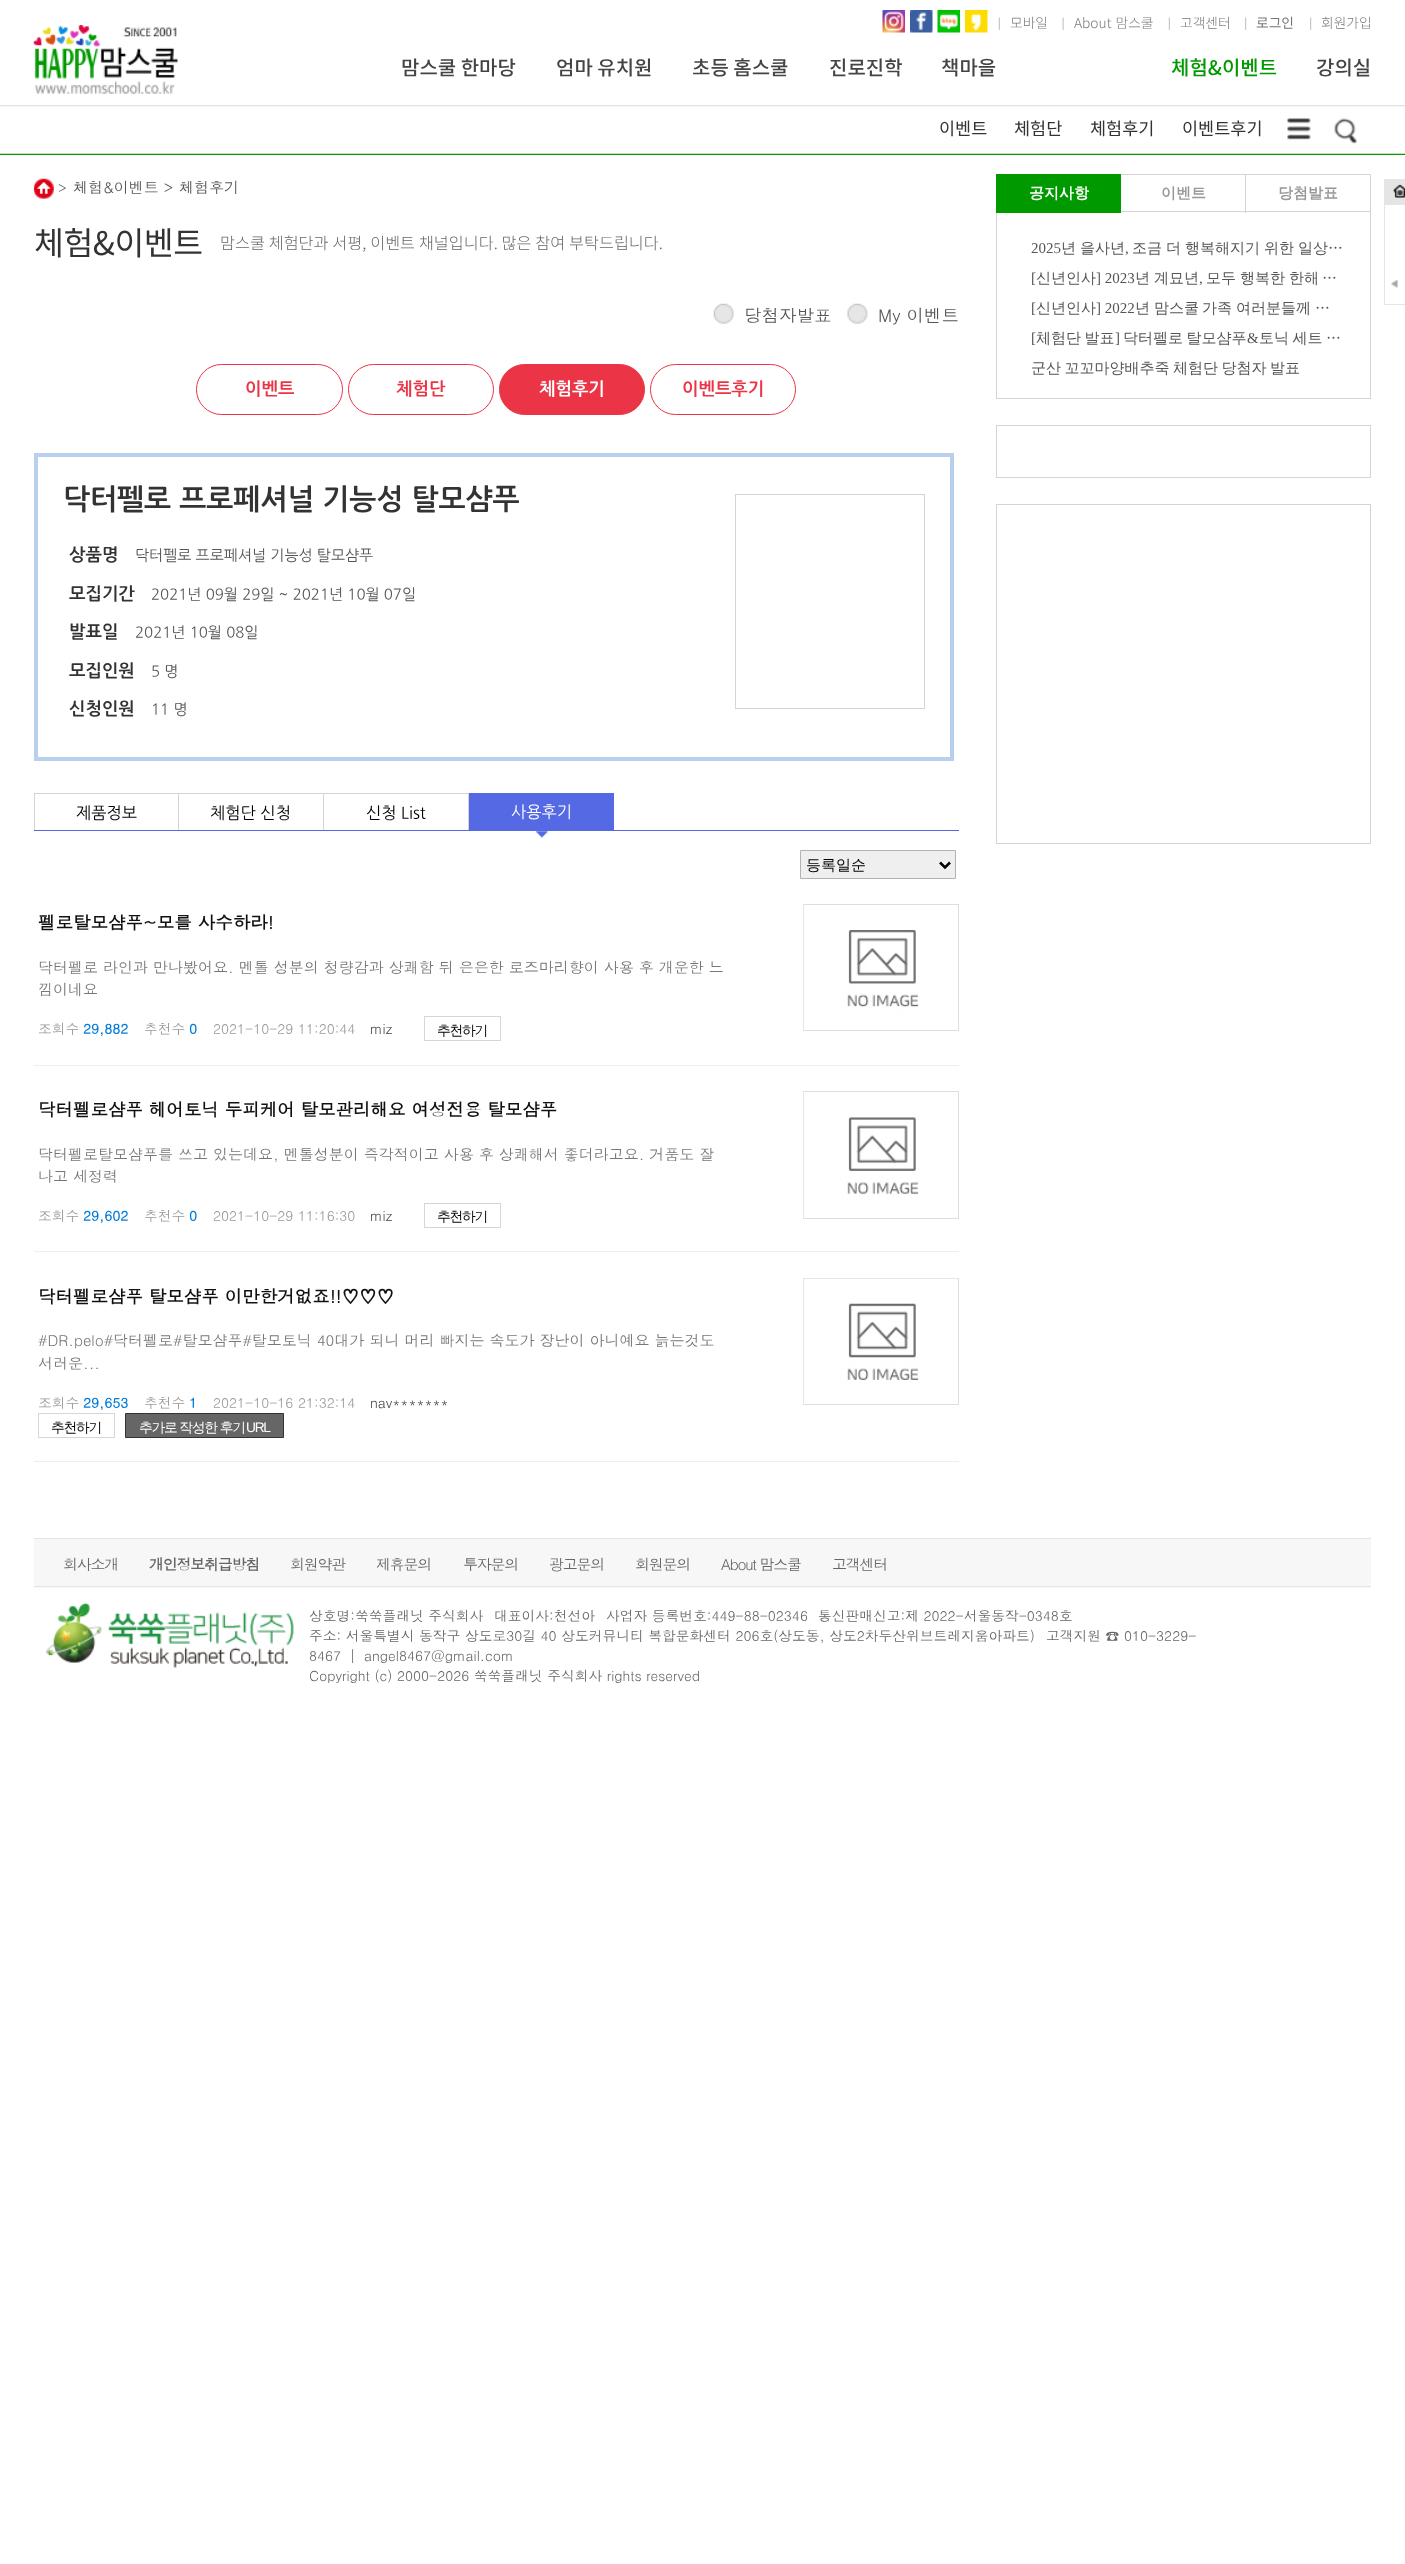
async function draw(canvas) {
	canvas.width = 1405;
	canvas.height = 2564;
	const c = canvas.getContext('2d');
	c.miterLimit = 4;
	c.fontKerning = 'normal';
	async function loadImage(src) {
		const img = new Image();
		img.src = src;
		await img.decode();
		return img;
	}

	c.fillStyle = '#fff';
	c.fillRect(0, 0, 1405, 2564);
	c.drawImage(await loadImage('img1.png'), 0, 105, 1405, 50);
	c.drawImage(await loadImage('img2.png'), 882, 10, 23, 23);
	c.drawImage(await loadImage('img3.png'), 910, 10, 23, 23);
	c.drawImage(await loadImage('img4.png'), 937, 10, 23, 23);
	c.drawImage(await loadImage('img5.png'), 965, 10, 23, 23);
	c.drawImage(await loadImage('img6.png'), 998, 17, 2, 13);
	c.font = '300 13.75px Noto Sans KR';
	c.fillStyle = '#777';
	c.fillText('모바일', 1010, 28);
	c.drawImage(await loadImage('img7.png'), 1062, 17, 2, 13);
	c.wordSpacing = '1px';
	c.fillText('About 맘스쿨', 1074, 28);
	c.drawImage(await loadImage('img6.png'), 1168, 17, 2, 13);
	c.wordSpacing = '0px';
	c.fillText('고객센터', 1180, 28);
	c.drawImage(await loadImage('img8.png'), 1245, 17, 2, 13);
	c.font = '13.75px Noto Sans KR';
	c.fillText('로그인', 1256, 28);
	c.drawImage(await loadImage('img8.png'), 1310, 17, 2, 13);
	c.font = '300 13.75px Noto Sans KR';
	c.fillText('회원가입', 1321, 28);
	c.drawImage(await loadImage('img9.png'), 33, 25, 145, 69);
	c.font = '500 20px Noto Sans KR';
	c.fillStyle = '#444';
	for (const [text, x, y] of [
		['맘스쿨 한마당', 401, 75],
		['엄마 유치원', 556, 75],
		['초등 홈스쿨', 692, 75],
		['진로진학', 829, 75],
	]) {
		c.fillText(text, x, y);
	}
	c.fillStyle = '#090';
	c.fillText('체험&이벤트', 1171, 75);
	c.font = '17.5px Noto Sans KR';
	c.fillStyle = '#333';
	for (const [text, x, y] of [
		['이벤트', 939, 135],
		['체험단', 1014, 135],
		['체험후기', 1090, 135],
		['이벤트후기', 1182, 135],
	]) {
		c.fillText(text, x, y);
	}
	c.font = '500 20px Noto Sans KR';
	c.fillStyle = '#444';
	c.fillText('책마을', 941, 75);
	c.fillText('강의실', 1316, 75);
	c.drawImage(await loadImage('img10.png'), 1287, 118, 24, 22);
	c.drawImage(await loadImage('img11.png'), 1334, 118, 23, 26);
	c.drawImage(await loadImage('img12.png'), 33, 178, 21, 21);
	c.font = '13.75px Dotum';
	c.fillStyle = '#666';
	c.fillText('>', 58, 193);
	c.font = '15px Dotum';
	c.fillStyle = '#555';
	c.fillText('체험&이벤트 >', 73, 193);
	c.fillText('체험후기', 179, 193);
	c.letterSpacing = '-0.5px';
	c.font = '32.5px Noto Sans KR';
	c.fillStyle = '#333';
	c.fillText('체험&이벤트', 34, 255);
	c.letterSpacing = '0px';
	c.wordSpacing = '0.25px';
	c.font = '300 16.25px Noto Sans KR';
	c.fillStyle = '#666';
	c.fillText('맘스쿨 체험단과 서평, 이벤트 채널입니다. 많은 참여 부탁드립니다.', 220, 249);
	c.drawImage(await loadImage('img13.png'), 713, 303, 21, 21);
	c.wordSpacing = '0px';
	c.font = '17.5px Dotum';
	c.fillStyle = '#555';
	c.fillText('당첨자발표', 744, 322);
	c.drawImage(await loadImage('img14.png'), 847, 303, 21, 21);
	c.fillText('My 이벤트', 878, 322);
	c.beginPath();
	c.roundRect(196.5, 364.5, 146, 50, 25);
	c.strokeStyle = '#eb3446';
	c.stroke();
	c.font = 'bold 17.5px NanumGothic';
	c.fillStyle = '#eb3446';
	c.fillText('이벤트', 245, 395);
	c.beginPath();
	c.roundRect(348.5, 364.5, 145, 50, 25);
	c.stroke();
	c.fillText('체험단', 396, 395);
	c.beginPath();
	c.roundRect(499.5, 364.5, 145, 50, 25);
	c.fill();
	c.stroke();
	c.fillStyle = '#fff';
	c.fillText('체험후기', 539, 395);
	c.beginPath();
	c.roundRect(650.5, 364.5, 145, 50, 25);
	c.stroke();
	c.fillStyle = '#eb3446';
	c.fillText('이벤트후기', 682, 395);
	c.strokeStyle = '#b8d0ed';
	c.lineWidth = 4;
	c.strokeRect(36, 455, 916, 304);
	c.font = 'bold 28.75px "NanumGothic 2"';
	c.fillStyle = '#333';
	c.fillText('닥터펠로 프로페셔널 기능성 탈모샴푸', 63, 508);
	c.strokeStyle = '#d4d4d4';
	c.lineWidth = 1;
	c.strokeRect(735.5, 494.5, 189, 214);
	c.font = 'bold 17.5px "NanumGothic 2"';
	c.fillText('상품명', 69, 560);
	c.font = '15px NanumGothic';
	c.fillStyle = '#555';
	c.fillText('닥터펠로 프로페셔널 기능성 탈모샴푸', 135, 560);
	c.font = 'bold 17.5px "NanumGothic 2"';
	c.fillStyle = '#333';
	c.fillText('모집기간', 69, 599);
	c.font = '15px NanumGothic';
	c.fillStyle = '#555';
	c.fillText('2021년 09월 29일 ~ 2021년 10월 07일', 151, 599);
	c.font = 'bold 17.5px "NanumGothic 2"';
	c.fillStyle = '#333';
	c.fillText('발표일', 69, 637);
	c.font = '15px NanumGothic';
	c.fillStyle = '#555';
	c.fillText('2021년 10월 08일', 135, 637);
	c.font = 'bold 17.5px "NanumGothic 2"';
	c.fillStyle = '#333';
	c.fillText('모집인원', 69, 676);
	c.font = '15px NanumGothic';
	c.fillStyle = '#555';
	c.fillText('5 명', 151, 676);
	c.font = 'bold 17.5px "NanumGothic 2"';
	c.fillStyle = '#333';
	c.fillText('신청인원', 69, 714);
	c.font = '15px NanumGothic';
	c.fillStyle = '#555';
	c.fillText('11 명', 151, 714);
	for (const [x, y, w, h, color] of [
		[34, 830, 925, 1, '#5469e3'],
		[34, 793, 435, 1, '#d4d4d4'],
		[178, 793, 1, 37, '#d4d4d4'],
		[34, 793, 1, 37, '#d4d4d4'],
	]) {
		c.fillStyle = color;
		c.fillRect(x, y, w, h);
	}
	c.font = '16.25px NanumGothic';
	c.fillStyle = '#000';
	c.fillText('제품정보', 76, 818);
	c.fillStyle = '#d4d4d4';
	c.fillRect(323, 793, 1, 37);
	c.fillStyle = '#000';
	c.fillText('체험단 신청', 210, 818);
	c.fillStyle = '#d4d4d4';
	c.fillRect(468, 793, 1, 37);
	c.fillStyle = '#000';
	c.fillText('신청 List', 366, 818);
	c.drawImage(await loadImage('img15.png'), 536, 831, 12, 7);
	c.fillStyle = '#5469e3';
	c.fillRect(469, 793, 145, 37);
	c.fillStyle = '#fff';
	c.fillText('사용후기', 511, 817);
	c.fillStyle = '#efefef';
	c.beginPath();
	c.rect(800.5, 850.5, 155, 28);
	c.fill();
	c.strokeStyle = '#b2b2b2';
	c.stroke();
	c.beginPath();
	c.moveTo(940, 862.5);
	c.lineTo(945, 867.5);
	c.lineTo(950, 862.5);
	c.strokeStyle = '#000';
	c.lineWidth = 2.5;
	c.stroke();
	c.font = '500 15px WenQuanYi Zen Hei';
	c.fillStyle = '#000';
	c.fillText('등록일순', 806, 870);
	c.fillStyle = '#eee';
	c.fillRect(34, 1065, 925, 1);
	c.font = 'bold 17.5px Dotum';
	c.fillStyle = '#111';
	c.fillText('펠로탈모샴푸~모를 사수하라!', 38, 929);
	c.font = '15px Dotum';
	c.fillStyle = '#777';
	c.fillText('닥터펠로 라인과 만나봤어요. 멘톨 성분의 청량감과 상쾌함 뒤 은은한 로즈마리향이 사용 후 개운한 느', 38, 973);
	c.fillText('낌이네요', 38, 995);
	c.font = '13.75px Dotum';
	c.fillStyle = '#999';
	c.fillText('조회수', 38, 1034);
	c.font = 'bold 13.75px Dotum';
	c.fillStyle = '#007bda';
	c.fillText('29,882', 83, 1034);
	c.font = '13.75px Dotum';
	c.fillStyle = '#999';
	c.fillText('추천수', 144, 1034);
	c.font = 'bold 13.75px Dotum';
	c.fillStyle = '#007bda';
	c.fillText('0', 189, 1034);
	c.font = '13.75px Dotum';
	c.fillStyle = '#999';
	c.fillText('2021-10-29 11:20:44', 213, 1034);
	c.fillStyle = '#444';
	c.fillText('miz', 370, 1034);
	c.strokeStyle = '#d6d6d6';
	c.lineWidth = 1;
	c.strokeRect(424.5, 1016.5, 76, 24);
	c.letterSpacing = '-1.25px';
	c.font = '500 13.75px WenQuanYi Zen Hei';
	c.fillStyle = '#000';
	c.fillText('추천하기', 437, 1035);
	c.strokeStyle = '#dedede';
	c.strokeRect(803.5, 904.5, 155, 126);
	c.drawImage(await loadImage('img16.png'), 803, 905, 116, 125);
	c.fillStyle = '#eee';
	c.fillRect(34, 1251, 925, 1);
	c.letterSpacing = '0px';
	c.font = 'bold 17.5px Dotum';
	c.fillStyle = '#111';
	c.fillText('닥터펠로샴푸 헤어토닉 두피케어 탈모관리해요 여성전용 탈모샴푸', 38, 1116);
	c.font = '15px Dotum';
	c.fillStyle = '#777';
	c.fillText('닥터펠로탈모샴푸를 쓰고 있는데요, 멘톨성분이 즉각적이고 사용 후 상쾌해서 좋더라고요. 거품도 잘', 38, 1160);
	c.fillText('나고 세정력', 38, 1182);
	c.font = '13.75px Dotum';
	c.fillStyle = '#999';
	c.fillText('조회수', 38, 1221);
	c.font = 'bold 13.75px Dotum';
	c.fillStyle = '#007bda';
	c.fillText('29,602', 83, 1221);
	c.font = '13.75px Dotum';
	c.fillStyle = '#999';
	c.fillText('추천수', 144, 1221);
	c.font = 'bold 13.75px Dotum';
	c.fillStyle = '#007bda';
	c.fillText('0', 189, 1221);
	c.font = '13.75px Dotum';
	c.fillStyle = '#999';
	c.fillText('2021-10-29 11:16:30', 213, 1221);
	c.fillStyle = '#444';
	c.fillText('miz', 370, 1221);
	c.strokeStyle = '#d6d6d6';
	c.strokeRect(424.5, 1203.5, 76, 24);
	c.letterSpacing = '-1.25px';
	c.font = '500 13.75px WenQuanYi Zen Hei';
	c.fillStyle = '#000';
	c.fillText('추천하기', 437, 1221);
	c.strokeStyle = '#dedede';
	c.strokeRect(803.5, 1091.5, 155, 127);
	c.drawImage(await loadImage('img17.png'), 803, 1092, 116, 126);
	c.fillStyle = '#eee';
	c.fillRect(34, 1461, 925, 1);
	c.letterSpacing = '0px';
	c.font = 'bold 17.5px Dotum';
	c.fillStyle = '#111';
	c.fillText('닥터펠로샴푸 탈모샴푸 이만한거없죠!!♡♡♡', 38, 1303);
	c.font = '15px Dotum';
	c.fillStyle = '#777';
	c.fillText('#DR.pelo#닥터펠로#탈모샴푸#탈모토닉 40대가 되니 머리 빠지는 속도가 장난이 아니예요 늙는것도', 38, 1346);
	c.fillText('서러운...', 38, 1369);
	c.font = '13.75px Dotum';
	c.fillStyle = '#999';
	c.fillText('조회수', 38, 1408);
	c.font = 'bold 13.75px Dotum';
	c.fillStyle = '#007bda';
	c.fillText('29,653', 83, 1408);
	c.font = '13.75px Dotum';
	c.fillStyle = '#999';
	c.fillText('추천수', 144, 1408);
	c.font = 'bold 13.75px Dotum';
	c.fillStyle = '#007bda';
	c.fillText('1', 189, 1408);
	c.font = '13.75px Dotum';
	c.fillStyle = '#999';
	c.fillText('2021-10-16 21:32:14', 213, 1408);
	c.fillStyle = '#444';
	c.fillText('nav*******', 370, 1408);
	c.strokeStyle = '#d6d6d6';
	c.strokeRect(38.5, 1413.5, 76, 24);
	c.letterSpacing = '-1.25px';
	c.font = '500 13.75px WenQuanYi Zen Hei';
	c.fillStyle = '#000';
	c.fillText('추천하기', 51, 1432);
	c.fillStyle = '#666';
	c.beginPath();
	c.rect(125.5, 1413.5, 158, 24);
	c.fill();
	c.strokeStyle = '#333';
	c.stroke();
	c.fillStyle = '#fff';
	c.fillText('추가로 작성한 후기', 139, 1432);
	c.font = '13.75px Liberation Sans';
	c.fillText('URL', 246, 1432);
	c.strokeStyle = '#dedede';
	c.strokeRect(803.5, 1278.5, 155, 126);
	c.drawImage(await loadImage('img18.png'), 803, 1278, 155, 126);
	for (const [x, y, w, h, color] of [
		[1370, 210, 1, 189, '#d5d5d5'],
		[996, 398, 375, 1, '#d5d5d5'],
		[996, 210, 1, 189, '#d5d5d5'],
		[996, 174, 125, 39, '#090'],
	]) {
		c.fillStyle = color;
		c.fillRect(x, y, w, h);
	}
	c.letterSpacing = '0px';
	c.font = 'bold 15px WenQuanYi Zen Hei';
	c.fillStyle = '#fff';
	c.fillText('공지사항', 1029, 198);
	for (const [x, y, w, h, color] of [
		[1121, 174, 250, 1, '#d5d5d5'],
		[1245, 174, 1, 39, '#d5d5d5'],
		[1121, 211, 125, 1, '#d5d5d5'],
	]) {
		c.fillStyle = color;
		c.fillRect(x, y, w, h);
	}
	c.fillStyle = '#999';
	c.fillText('이벤트', 1161, 198);
	c.fillStyle = '#d5d5d5';
	c.fillRect(1370, 174, 1, 39);
	c.fillRect(1246, 211, 125, 1);
	c.fillStyle = '#999';
	c.fillText('당첨발표', 1278, 198);
	c.font = '15px Liberation Serif';
	c.fillStyle = '#555';
	c.fillText('2025', 1031, 253);
	c.wordSpacing = '-0.5px';
	c.font = '500 15px WenQuanYi Zen Hei';
	c.fillText('년 을사년', 1061, 253);
	c.wordSpacing = '0px';
	c.font = '15px Liberation Serif';
	c.fillText(',', 1125, 253);
	c.wordSpacing = '-0.5px';
	c.font = '500 15px WenQuanYi Zen Hei';
	c.fillText('조금 더 행복해지기 위한 일상…', 1132, 253);
	c.wordSpacing = '0px';
	c.font = '15px Liberation Serif';
	c.fillText('[', 1031, 283);
	c.font = '500 15px WenQuanYi Zen Hei';
	c.fillText('신년인사', 1036, 283);
	c.font = '15px Liberation Serif';
	c.fillText('] 2023', 1096, 283);
	c.font = '500 15px WenQuanYi Zen Hei';
	for (const [text, x, y] of [
		['년', 1135, 283],
		['계묘년', 1154, 283],
		['모두', 1206, 283],
		['행복한', 1240, 283],
		['한해', 1289, 283],
		['…', 1322, 283],
	]) {
		c.fillText(text, x, y);
	}
	c.font = '15px Liberation Serif';
	c.fillText(',', 1199, 283);
	c.fillText('[', 1031, 313);
	c.font = '500 15px WenQuanYi Zen Hei';
	c.fillText('신년인사', 1036, 313);
	c.font = '15px Liberation Serif';
	c.fillText('] 2022', 1096, 313);
	c.font = '500 15px WenQuanYi Zen Hei';
	for (const [text, x, y] of [
		['년', 1135, 313],
		['맘스쿨', 1154, 313],
		['가족', 1202, 313],
		['여러분들께', 1236, 313],
		['…', 1315, 313],
	]) {
		c.fillText(text, x, y);
	}
	c.font = '15px Liberation Serif';
	c.fillText('[', 1031, 343);
	c.wordSpacing = '-1px';
	c.font = '500 15px WenQuanYi Zen Hei';
	c.fillText('체험단 발표', 1036, 343);
	c.wordSpacing = '0px';
	c.font = '15px Liberation Serif';
	c.fillText(']', 1115, 343);
	c.wordSpacing = '-1px';
	c.font = '500 15px WenQuanYi Zen Hei';
	c.fillText('닥터펠로 탈모샴푸', 1123, 343);
	c.wordSpacing = '0px';
	c.font = '15px Liberation Serif';
	c.fillText('&', 1247, 343);
	c.wordSpacing = '-1px';
	c.font = '500 15px WenQuanYi Zen Hei';
	c.fillText('토닉 세트 …', 1259, 343);
	c.fillText('군산 꼬꼬마양배추죽 체험단 당첨자 발표', 1031, 373);
	c.strokeStyle = '#d5d5d5';
	c.strokeRect(996.5, 425.5, 374, 52);
	c.strokeRect(996.5, 504.5, 374, 339);
	c.strokeStyle = '#e5e5e5';
	c.strokeRect(1384.5, 179.5, 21, 125);
	c.drawImage(await loadImage('img19.png'), 1385, 180, 20, 25);
	c.drawImage(await loadImage('img20.png'), 1391, 279, 7, 9);
	for (const [x, y, w, h, color] of [
		[34, 1539, 1337, 49, '#f7f7f7'],
		[34, 1538, 1337, 1, '#e5e5e5'],
		[34, 1586, 1337, 1, '#e5e5e5'],
	]) {
		c.fillStyle = color;
		c.fillRect(x, y, w, h);
	}
	c.letterSpacing = '-1.25px';
	c.wordSpacing = '0px';
	c.font = '15px Dotum';
	c.fillStyle = '#666';
	c.fillText('회사소개', 63, 1570);
	c.font = 'bold 15px Dotum';
	c.fillText('개인정보취급방침', 149, 1570);
	c.font = '15px Dotum';
	for (const [text, x, y] of [
		['회원약관', 290, 1570],
		['제휴문의', 376, 1570],
		['투자문의', 463, 1570],
		['광고문의', 549, 1570],
		['회원문의', 635, 1570],
		['About 맘스쿨', 721, 1570],
		['고객센터', 832, 1570],
	]) {
		c.fillText(text, x, y);
	}
	c.drawImage(await loadImage('img21.png'), 46, 1603, 248, 65);
	c.letterSpacing = '0px';
	c.font = '13.75px Dotum';
	for (const [text, x, y] of [
		['상호명:쑥쑥플래닛 주식회사', 309, 1621],
		['대표이사:천선아', 494, 1621],
		['사업자 등록번호:449-88-02346', 606, 1621],
		['통신판매신고:제 2022-서울동작-0348호', 818, 1621],
		['주소: 서울특별시 동작구 상도로30길 40 상도커뮤니티 복합문화센터 206호(상도동, 상도2차두산위브트레지움아파트)', 309, 1641],
		['고객지원 ☎ 010-3229-', 1046, 1641],
		['8467 │ angel8467@gmail.com', 309, 1661],
		['Copyright (c) 2000-2026 쑥쑥플래닛 주식회사 rights reserved', 309, 1681],
	]) {
		c.fillText(text, x, y);
	}
}

draw(document.querySelector('canvas'));
